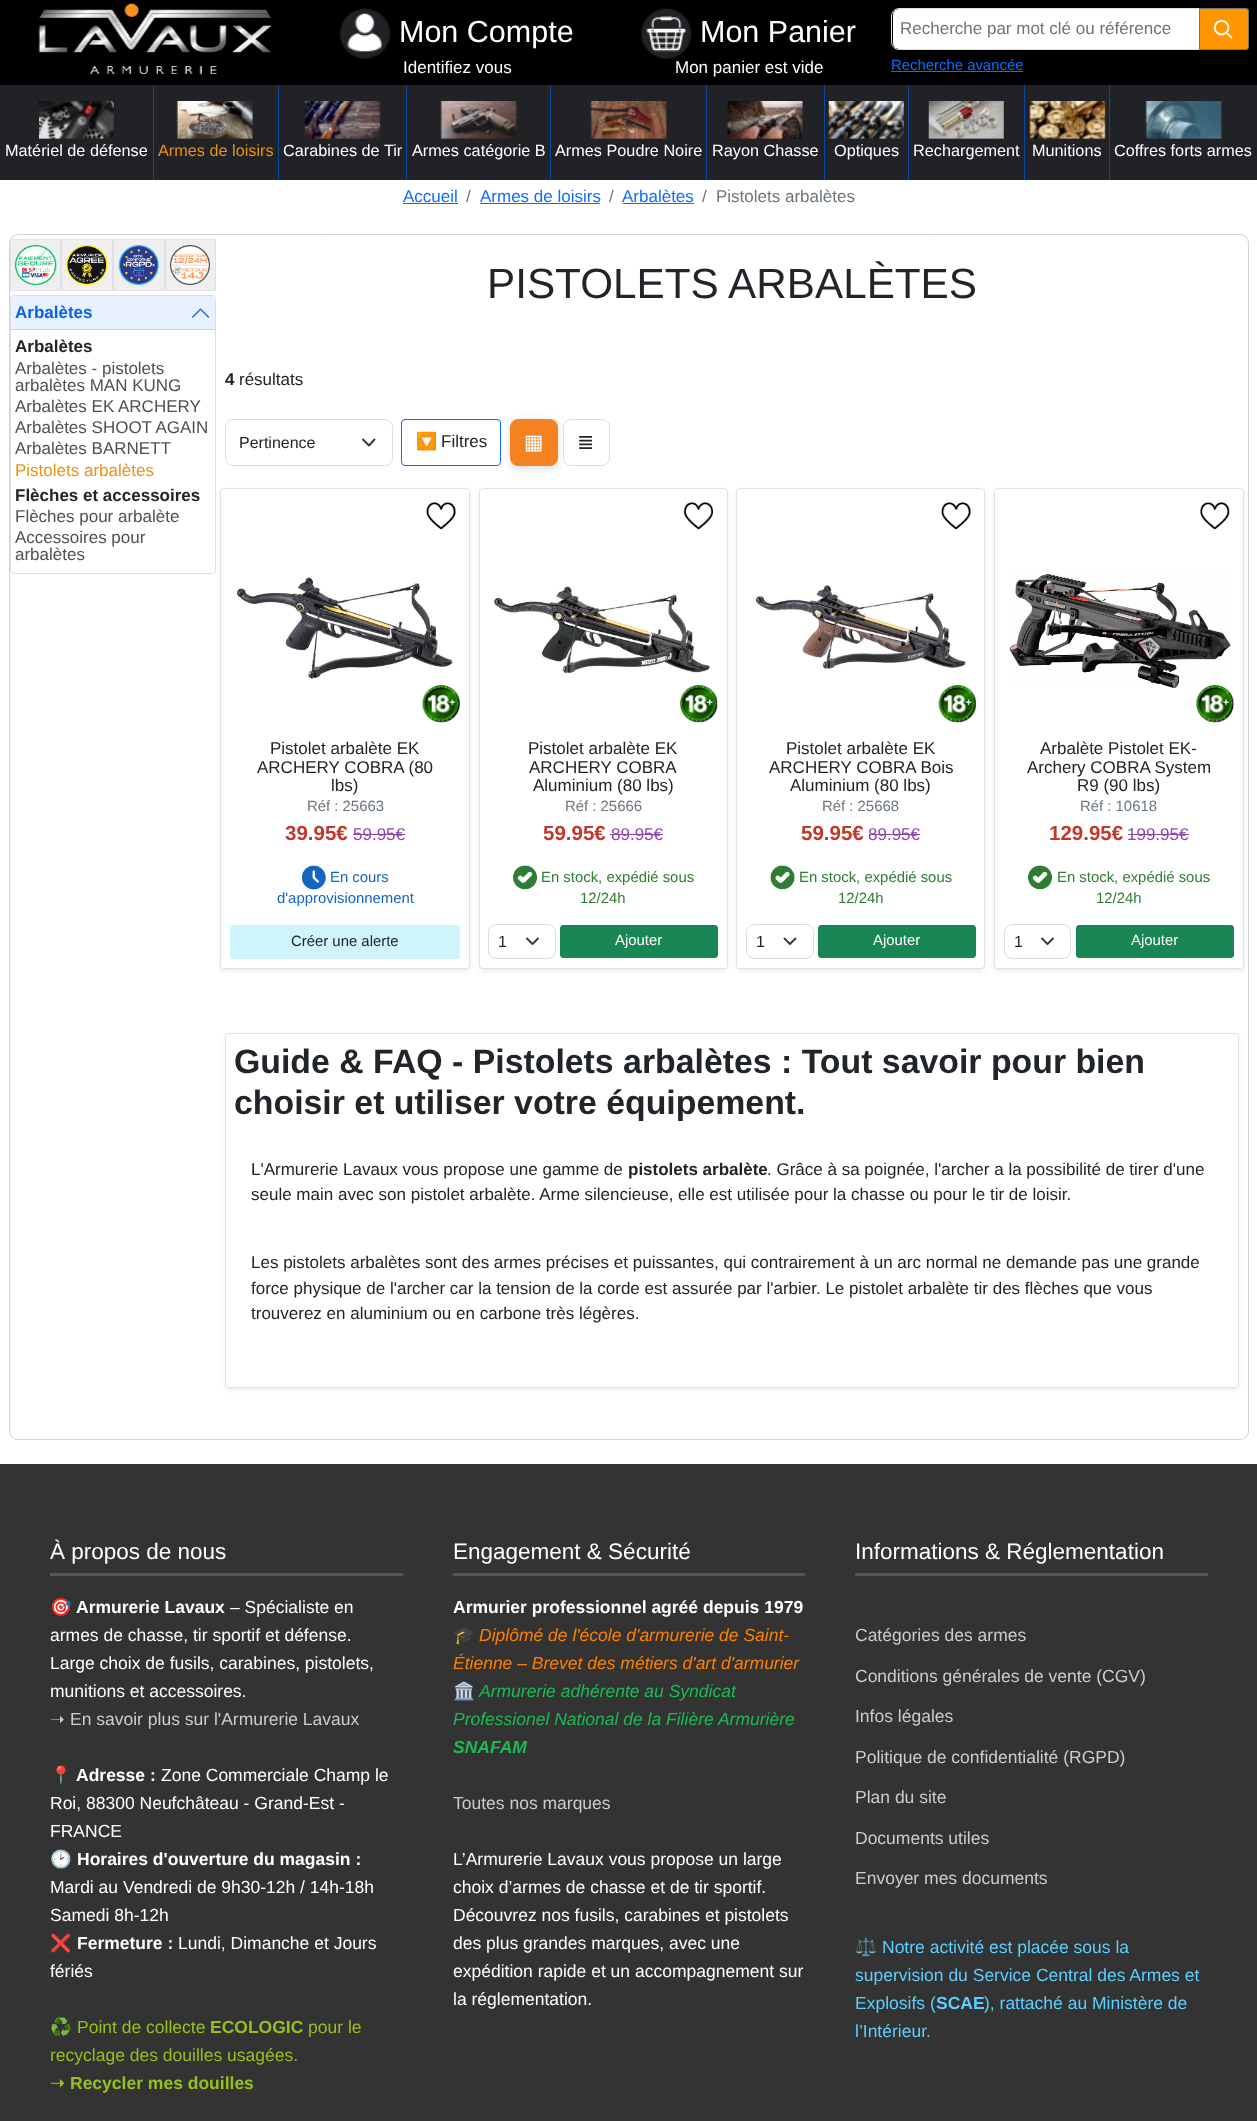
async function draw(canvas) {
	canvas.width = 1257;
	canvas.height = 2121;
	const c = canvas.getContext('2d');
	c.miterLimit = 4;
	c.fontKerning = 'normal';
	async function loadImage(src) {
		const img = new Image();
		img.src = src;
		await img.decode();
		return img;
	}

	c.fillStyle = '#fff';
	c.fillRect(0, 0, 1257, 2121);
	c.fillStyle = '#000';
	c.fillRect(0, 0, 1257, 85);
	c.drawImage(await loadImage('img1.png'), 38, 3, 234, 71);
	c.drawImage(await loadImage('img2.png'), 339, 8, 52, 51);
	c.font = '30.5px Liberation Sans';
	c.fillStyle = '#fff';
	c.fillText('Mon Compte', 399, 42);
	c.font = '17px Liberation Sans';
	c.fillText('Identifiez vous', 403, 73);
	c.drawImage(await loadImage('img3.png'), 641, 8, 51, 51);
	c.font = '30.5px Liberation Sans';
	c.fillText('Mon Panier', 700, 42);
	c.font = '17px Liberation Sans';
	c.fillText('Mon panier est vide', 675, 73);
	c.beginPath();
	c.roundRect(893, 9, 306, 40, [6, 0, 0, 6]);
	c.fill();
	c.beginPath();
	c.roundRect(891.5, 8.5, 308, 41, [7.5, 0, 0, 7.5]);
	c.strokeStyle = '#ddd';
	c.stroke();
	c.fillStyle = '#6c757d';
	c.fillText('Recherche par mot clé ou référence', 900, 34);
	c.fillStyle = '#ff9600';
	c.beginPath();
	c.roundRect(1199.5, 8.5, 49, 41, [0, 2.5, 2.5, 0]);
	c.fill();
	c.strokeStyle = '#6c757d';
	c.stroke();
	c.drawImage(await loadImage('img4.png'), 1213, 19, 20, 20);
	c.font = '14.9px Liberation Sans';
	c.fillStyle = '#0d6efd';
	c.fillText('Recherche avancée', 891, 70);
	for (const [x, y, w, h, color] of [
		[891, 71, 132, 1, '#0d6efd'],
		[0, 85, 1257, 95, '#202225'],
		[153, 85, 1, 95, '#0847a3'],
	]) {
		c.fillStyle = color;
		c.fillRect(x, y, w, h);
	}
	c.drawImage(await loadImage('img5.png'), 39, 101, 75, 38);
	c.font = '16.25px Liberation Sans';
	c.fillStyle = '#fff';
	c.fillText('Matériel de défense', 5, 156);
	c.fillStyle = '#0847a3';
	c.fillRect(278, 85, 1, 95);
	c.drawImage(await loadImage('img6.png'), 176, 101, 77, 38);
	c.fillStyle = '#ec9210';
	c.fillText('Armes de loisirs', 158, 156);
	c.fillStyle = '#0847a3';
	c.fillRect(406, 85, 1, 95);
	c.drawImage(await loadImage('img7.png'), 304, 101, 77, 38);
	c.fillStyle = '#fff';
	c.fillText('Carabines de Tir', 283, 156);
	c.fillStyle = '#0847a3';
	c.fillRect(550, 85, 1, 95);
	c.drawImage(await loadImage('img8.png'), 440, 101, 77, 38);
	c.fillStyle = '#fff';
	c.fillText('Armes catégorie B', 412, 156);
	c.fillStyle = '#0847a3';
	c.fillRect(706, 85, 1, 95);
	c.drawImage(await loadImage('img9.png'), 590, 101, 77, 38);
	c.fillStyle = '#fff';
	c.fillText('Armes Poudre Noire', 555, 156);
	c.fillStyle = '#0847a3';
	c.fillRect(824, 85, 1, 95);
	c.drawImage(await loadImage('img10.png'), 726, 101, 77, 38);
	c.fillStyle = '#fff';
	c.fillText('Rayon Chasse', 712, 156);
	c.fillStyle = '#0847a3';
	c.fillRect(908, 85, 1, 95);
	c.drawImage(await loadImage('img11.png'), 828, 101, 76, 38);
	c.fillStyle = '#fff';
	c.fillText('Optiques', 834, 156);
	c.fillStyle = '#0847a3';
	c.fillRect(1024, 85, 1, 95);
	c.drawImage(await loadImage('img12.png'), 928, 101, 76, 38);
	c.fillStyle = '#fff';
	c.fillText('Rechargement', 913, 156);
	c.fillStyle = '#0847a3';
	c.fillRect(1109, 85, 1, 95);
	c.drawImage(await loadImage('img13.png'), 1029, 101, 77, 38);
	c.fillStyle = '#fff';
	c.fillText('Munitions', 1032, 156);
	c.drawImage(await loadImage('img14.png'), 1145, 101, 77, 38);
	c.fillText('Coffres forts armes', 1114, 156);
	c.font = '17px Liberation Sans';
	c.fillStyle = '#0d6efd';
	c.fillText('Accueil', 403, 202);
	c.fillRect(403, 203, 55, 1);
	c.fillStyle = '#6c757d';
	c.fillText('/', 466, 202);
	c.fillStyle = '#0d6efd';
	c.fillText('Armes de loisirs', 480, 202);
	c.fillRect(480, 203, 120, 1);
	c.fillStyle = '#6c757d';
	c.fillText('/', 609, 202);
	c.fillStyle = '#0d6efd';
	c.fillText('Arbalètes', 622, 202);
	c.fillRect(623, 203, 71, 1);
	c.fillStyle = '#6c757d';
	c.fillText('/', 702, 202);
	c.fillText('Pistolets arbalètes', 716, 202);
	c.beginPath();
	c.roundRect(9.5, 234.5, 1239, 1205, 8.5);
	c.strokeStyle = '#d6d1d0';
	c.stroke();
	c.fillStyle = '#efefef';
	c.beginPath();
	c.rect(10.5, 239.5, 50, 51);
	c.fill();
	c.strokeStyle = '#dee2e6';
	c.stroke();
	c.drawImage(await loadImage('img15.png'), 15, 245, 42, 40);
	c.beginPath();
	c.rect(61.5, 239.5, 51, 51);
	c.fill();
	c.stroke();
	c.drawImage(await loadImage('img16.png'), 66, 245, 42, 40);
	c.beginPath();
	c.rect(113.5, 239.5, 51, 51);
	c.fill();
	c.stroke();
	c.drawImage(await loadImage('img17.png'), 118, 245, 41, 40);
	c.beginPath();
	c.rect(165.5, 239.5, 50, 51);
	c.fill();
	c.stroke();
	c.drawImage(await loadImage('img18.png'), 170, 245, 40, 40);
	c.beginPath();
	c.roundRect(10.5, 295.5, 205, 278, 3.5);
	c.strokeStyle = '#dfdfdf';
	c.stroke();
	c.fillStyle = '#e7f1ff';
	c.beginPath();
	c.roundRect(11, 296, 204, 34, [3, 3, 0, 0]);
	c.fill();
	c.fillStyle = '#cad3df';
	c.fillRect(11, 329, 204, 1);
	c.font = 'bold 17px Liberation Sans';
	c.fillStyle = '#0c63e4';
	c.fillText('Arbalètes', 15, 318);
	c.drawImage(await loadImage('img19.png'), 192, 308, 18, 10);
	c.fillStyle = '#212529';
	c.fillText('Arbalètes', 15, 352);
	c.font = '17px Liberation Sans';
	c.fillStyle = '#524f4f';
	for (const [text, x, y] of [
		['Arbalètes - pistolets', 15, 374],
		['arbalètes MAN KUNG', 15, 391],
		['Arbalètes EK ARCHERY', 15, 412],
		['Arbalètes SHOOT AGAIN', 15, 433],
		['Arbalètes BARNETT', 15, 454],
	]) {
		c.fillText(text, x, y);
	}
	c.fillStyle = '#ec9210';
	c.fillText('Pistolets arbalètes', 15, 476);
	c.font = 'bold 17px Liberation Sans';
	c.fillStyle = '#212529';
	c.fillText('Flèches et accessoires', 15, 501);
	c.font = '17px Liberation Sans';
	c.fillStyle = '#524f4f';
	for (const [text, x, y] of [
		['Flèches pour arbalète', 15, 522],
		['Accessoires pour', 15, 543],
		['arbalètes', 15, 560],
	]) {
		c.fillText(text, x, y);
	}
	c.font = '42.25px Liberation Sans';
	c.fillStyle = '#212529';
	c.fillText('PISTOLETS ARBALÈTES', 487, 298);
	c.font = 'bold 17px Liberation Sans';
	c.fillText('4', 225, 385);
	c.font = '17px Liberation Sans';
	c.fillText('résultats', 239, 385);
	c.beginPath();
	c.moveTo(363, 439.5);
	c.lineTo(369, 445.5);
	c.lineTo(374.5, 439.5);
	c.strokeStyle = '#343a40';
	c.lineWidth = 1.9;
	c.lineCap = 'round';
	c.lineJoin = 'round';
	c.stroke();
	c.beginPath();
	c.roundRect(225.5, 419.5, 167, 46, 7.5);
	c.strokeStyle = '#ddd';
	c.lineWidth = 1;
	c.lineJoin = 'miter';
	c.stroke();
	c.font = '16px Liberation Sans';
	c.fillText('Pertinence', 239, 448);
	c.beginPath();
	c.roundRect(401.5, 419.5, 99, 46, 3.5);
	c.strokeStyle = '#0d6efd';
	c.stroke();
	c.font = '17px Noto Color Emoji';
	c.fillText('🔽', 416, 447);
	c.font = '17px Liberation Sans';
	c.fillText('Filtres', 441, 447);
	c.fillStyle = '#0000001f';
	c.filter = 'blur(4px)';
	c.beginPath();
	c.roundRect(510, 421, 48, 48, 8);
	c.fill();
	c.filter = 'none';
	c.fillStyle = '#f58220';
	c.beginPath();
	c.roundRect(510.5, 419.5, 47, 46, 7.5);
	c.fill();
	c.strokeStyle = '#f58220';
	c.stroke();
	c.font = '20.5px DejaVu Sans';
	c.fillStyle = '#fff';
	c.fillText('▦', 524, 449);
	c.beginPath();
	c.roundRect(563.5, 419.5, 46, 46, 7.5);
	c.fill();
	c.strokeStyle = '#ddd';
	c.stroke();
	c.fillStyle = '#212529';
	c.fillText('≣', 577, 449);
	c.fillStyle = '#00000012';
	c.filter = 'blur(2px)';
	c.beginPath();
	c.roundRect(220, 490, 250, 481, 4);
	c.fill();
	c.filter = 'none';
	c.fillStyle = '#fff';
	c.beginPath();
	c.roundRect(220.5, 488.5, 249, 480, 3.5);
	c.fill();
	c.strokeStyle = '#dee2e6';
	c.stroke();
	c.drawImage(await loadImage('img20.png'), 426, 502, 30, 28);
	c.drawImage(await loadImage('img21.png'), 235, 577, 221, 102);
	c.drawImage(await loadImage('img22.png'), 422, 685, 38, 38);
	c.font = '17px Liberation Sans';
	c.fillStyle = '#212529';
	for (const [text, x, y] of [
		['Pistolet arbalète EK', 270, 754],
		['ARCHERY COBRA (80', 257, 773],
		['lbs)', 331, 791],
	]) {
		c.fillText(text, x, y);
	}
	c.font = '14.9px Liberation Sans';
	c.fillStyle = '#6c757d';
	c.fillText('Réf : 25663', 307, 811);
	c.font = 'bold 20.5px Liberation Sans';
	c.fillStyle = '#c0392b';
	c.fillText('39.95€', 285, 840);
	c.font = '17px Liberation Sans';
	c.fillStyle = '#8e44ad';
	c.fillText('59.95€', 353, 840);
	c.fillRect(353, 834, 52, 1);
	c.drawImage(await loadImage('img23.png'), 302, 865, 24, 25);
	c.font = '14.9px Liberation Sans';
	c.fillStyle = '#1565c0';
	c.fillText('En cours', 330, 882);
	c.fillText('d\'approvisionnement', 277, 903);
	c.fillStyle = '#cff4fc';
	c.beginPath();
	c.roundRect(230, 925, 230, 34, 3);
	c.fill();
	c.fillStyle = '#212529';
	c.fillText('Créer une alerte', 291, 946);
	c.fillStyle = '#00000012';
	c.filter = 'blur(2px)';
	c.beginPath();
	c.roundRect(479, 490, 249, 481, 4);
	c.fill();
	c.filter = 'none';
	c.fillStyle = '#fff';
	c.beginPath();
	c.roundRect(479.5, 488.5, 248, 480, 3.5);
	c.fill();
	c.stroke();
	c.drawImage(await loadImage('img24.png'), 683, 502, 30, 28);
	c.drawImage(await loadImage('img25.png'), 494, 586, 217, 88);
	c.drawImage(await loadImage('img26.png'), 680, 685, 38, 38);
	c.font = '17px Liberation Sans';
	c.fillStyle = '#212529';
	for (const [text, x, y] of [
		['Pistolet arbalète EK', 528, 754],
		['ARCHERY COBRA', 529, 773],
		['Aluminium (80 lbs)', 533, 791],
	]) {
		c.fillText(text, x, y);
	}
	c.font = '14.9px Liberation Sans';
	c.fillStyle = '#6c757d';
	c.fillText('Réf : 25666', 565, 811);
	c.font = 'bold 20.5px Liberation Sans';
	c.fillStyle = '#c0392b';
	c.fillText('59.95€', 543, 840);
	c.font = '17px Liberation Sans';
	c.fillStyle = '#8e44ad';
	c.fillText('89.95€', 611, 840);
	c.fillRect(610, 834, 53, 1);
	c.drawImage(await loadImage('img27.png'), 512, 865, 26, 25);
	c.font = '14.9px Liberation Sans';
	c.fillStyle = '#2e7d32';
	c.fillText('En stock, expédié sous', 541, 882);
	c.fillText('12/24h', 580, 903);
	c.beginPath();
	c.moveTo(527, 938.5);
	c.lineTo(532.5, 944);
	c.lineTo(538, 938.5);
	c.strokeStyle = '#343a40';
	c.lineWidth = 1.9;
	c.lineJoin = 'round';
	c.stroke();
	c.beginPath();
	c.roundRect(488.5, 924.5, 67, 34, 7.5);
	c.strokeStyle = '#ddd';
	c.lineWidth = 1;
	c.lineJoin = 'miter';
	c.stroke();
	c.font = '16px Liberation Sans';
	c.fillStyle = '#212529';
	c.fillText('1', 498, 947);
	c.fillStyle = '#198754';
	c.beginPath();
	c.roundRect(560.5, 925.5, 157, 32, 2.5);
	c.fill();
	c.strokeStyle = '#198754';
	c.stroke();
	c.font = '14.9px Liberation Sans';
	c.fillStyle = '#fff';
	c.fillText('Ajouter', 615, 945);
	c.fillStyle = '#00000012';
	c.filter = 'blur(2px)';
	c.beginPath();
	c.roundRect(736, 490, 249, 481, 4);
	c.fill();
	c.filter = 'none';
	c.fillStyle = '#fff';
	c.beginPath();
	c.roundRect(736.5, 488.5, 248, 480, 3.5);
	c.fill();
	c.strokeStyle = '#dee2e6';
	c.stroke();
	c.drawImage(await loadImage('img20.png'), 941, 502, 30, 28);
	c.drawImage(await loadImage('img28.png'), 755, 584, 211, 85);
	c.drawImage(await loadImage('img29.png'), 938, 685, 39, 38);
	c.font = '17px Liberation Sans';
	c.fillStyle = '#212529';
	for (const [text, x, y] of [
		['Pistolet arbalète EK', 786, 754],
		['ARCHERY COBRA Bois', 769, 773],
		['Aluminium (80 lbs)', 790, 791],
	]) {
		c.fillText(text, x, y);
	}
	c.font = '14.9px Liberation Sans';
	c.fillStyle = '#6c757d';
	c.fillText('Réf : 25668', 822, 811);
	c.font = 'bold 20.5px Liberation Sans';
	c.fillStyle = '#c0392b';
	c.fillText('59.95€', 801, 840);
	c.font = '17px Liberation Sans';
	c.fillStyle = '#8e44ad';
	c.fillText('89.95€', 868, 840);
	c.fillRect(869, 834, 51, 1);
	c.drawImage(await loadImage('img30.png'), 770, 865, 25, 25);
	c.font = '14.9px Liberation Sans';
	c.fillStyle = '#2e7d32';
	c.fillText('En stock, expédié sous', 799, 882);
	c.fillText('12/24h', 838, 903);
	c.beginPath();
	c.moveTo(784.5, 938.5);
	c.lineTo(790, 944);
	c.lineTo(795.5, 938.5);
	c.strokeStyle = '#343a40';
	c.lineWidth = 1.9;
	c.lineJoin = 'round';
	c.stroke();
	c.beginPath();
	c.roundRect(746.5, 924.5, 67, 34, 7.5);
	c.strokeStyle = '#ddd';
	c.lineWidth = 1;
	c.lineJoin = 'miter';
	c.stroke();
	c.font = '16px Liberation Sans';
	c.fillStyle = '#212529';
	c.fillText('1', 756, 947);
	c.fillStyle = '#198754';
	c.beginPath();
	c.roundRect(818.5, 925.5, 157, 32, 2.5);
	c.fill();
	c.strokeStyle = '#198754';
	c.stroke();
	c.font = '14.9px Liberation Sans';
	c.fillStyle = '#fff';
	c.fillText('Ajouter', 873, 945);
	c.fillStyle = '#00000012';
	c.filter = 'blur(2px)';
	c.beginPath();
	c.roundRect(994, 490, 250, 481, 4);
	c.fill();
	c.filter = 'none';
	c.fillStyle = '#fff';
	c.beginPath();
	c.roundRect(994.5, 488.5, 249, 480, 3.5);
	c.fill();
	c.strokeStyle = '#dee2e6';
	c.stroke();
	c.drawImage(await loadImage('img31.png'), 1200, 502, 30, 28);
	c.drawImage(await loadImage('img32.png'), 1009, 573, 222, 115);
	c.drawImage(await loadImage('img33.png'), 1196, 685, 38, 38);
	c.font = '17px Liberation Sans';
	c.fillStyle = '#212529';
	for (const [text, x, y] of [
		['Arbalète Pistolet EK-', 1040, 754],
		['Archery COBRA System', 1027, 773],
		['R9 (90 lbs)', 1077, 791],
	]) {
		c.fillText(text, x, y);
	}
	c.font = '14.9px Liberation Sans';
	c.fillStyle = '#6c757d';
	c.fillText('Réf : 10618', 1080, 811);
	c.font = 'bold 20.5px Liberation Sans';
	c.fillStyle = '#c0392b';
	c.fillText('129.95€', 1049, 840);
	c.font = '17px Liberation Sans';
	c.fillStyle = '#8e44ad';
	c.fillText('199.95€', 1127, 840);
	c.fillRect(1128, 834, 61, 1);
	c.drawImage(await loadImage('img27.png'), 1027, 865, 26, 25);
	c.font = '14.9px Liberation Sans';
	c.fillStyle = '#2e7d32';
	c.fillText('En stock, expédié sous', 1057, 882);
	c.fillText('12/24h', 1096, 903);
	c.beginPath();
	c.moveTo(1042, 938.5);
	c.lineTo(1047.5, 944);
	c.lineTo(1053, 938.5);
	c.strokeStyle = '#343a40';
	c.lineWidth = 1.9;
	c.lineJoin = 'round';
	c.stroke();
	c.beginPath();
	c.roundRect(1004.5, 924.5, 66, 34, 7.5);
	c.strokeStyle = '#ddd';
	c.lineWidth = 1;
	c.lineJoin = 'miter';
	c.stroke();
	c.font = '16px Liberation Sans';
	c.fillStyle = '#212529';
	c.fillText('1', 1014, 947);
	c.fillStyle = '#198754';
	c.beginPath();
	c.roundRect(1076.5, 925.5, 157, 32, 2.5);
	c.fill();
	c.strokeStyle = '#198754';
	c.stroke();
	c.font = '14.9px Liberation Sans';
	c.fillStyle = '#fff';
	c.fillText('Ajouter', 1131, 945);
	c.save();
	c.beginPath();
	c.moveTo(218, 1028);
	c.lineTo(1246, 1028);
	c.lineTo(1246, 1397);
	c.lineTo(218, 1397);
	c.closePath();
	c.moveTo(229, 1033);
	c.lineTo(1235, 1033);
	c.bezierCurveTo(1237, 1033, 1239, 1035, 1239, 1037);
	c.lineTo(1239, 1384);
	c.bezierCurveTo(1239, 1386, 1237, 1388, 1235, 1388);
	c.lineTo(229, 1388);
	c.bezierCurveTo(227, 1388, 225, 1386, 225, 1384);
	c.lineTo(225, 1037);
	c.bezierCurveTo(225, 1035, 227, 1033, 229, 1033);
	c.closePath();
	c.clip('evenodd');
	c.fillStyle = '#00000012';
	c.filter = 'blur(2px)';
	c.beginPath();
	c.roundRect(225, 1035, 1014, 355, 4);
	c.fill();
	c.filter = 'none';
	c.restore();
	c.beginPath();
	c.roundRect(225.5, 1033.5, 1013, 354, 3.5);
	c.strokeStyle = '#dee2e6';
	c.stroke();
	c.font = 'bold 33.85px Liberation Sans';
	c.fillStyle = '#212529';
	c.fillText('Guide & FAQ - Pistolets arbalètes : Tout savoir pour bien', 234, 1073);
	c.fillText('choisir et utiliser votre équipement.', 234, 1114);
	c.font = '17px Liberation Sans';
	c.fillText('L\'Armurerie Lavaux vous propose une gamme de', 251, 1175);
	c.font = 'bold 17px Liberation Sans';
	c.fillText('pistolets arbalète', 628, 1175);
	c.font = '17px Liberation Sans';
	for (const [text, x, y] of [
		['. Grâce à sa poignée, l\'archer a la possibilité de tirer d\'une', 767, 1175],
		['seule main avec son pistolet arbalète. Arme silencieuse, elle est utilisée pour la chasse ou pour le tir de loisir.', 251, 1200],
		['Les pistolets arbalètes sont des armes précises et puissantes, qui contrairement à un arc normal ne demande pas une grande', 251, 1268],
		['force physique de l\'archer car la tension de la corde est assurée par l\'arbier. Le pistolet arbalète tir des flèches que vous', 251, 1294],
		['trouverez en aluminium ou en carbone très légères.', 251, 1319],
	]) {
		c.fillText(text, x, y);
	}
	c.fillStyle = '#333';
	c.fillRect(0, 1464, 1257, 657);
	c.fillStyle = '#555';
	c.fillRect(50, 1573, 353, 3);
	c.font = '22.5px Liberation Sans';
	c.fillStyle = '#fff';
	c.fillText('À propos de nous', 50, 1559);
	c.font = '17.5px Noto Color Emoji';
	c.fillText('🎯', 50, 1613);
	c.font = 'bold 17.5px Liberation Sans';
	c.fillText('Armurerie Lavaux', 76, 1613);
	c.font = '17.5px Liberation Sans';
	for (const [text, x, y] of [
		['– Spécialiste en', 230, 1613],
		['armes de chasse, tir sportif et défense.', 50, 1641],
		['Large choix de fusils, carabines, pistolets,', 50, 1669],
		['munitions et accessoires.', 50, 1697],
	]) {
		c.fillText(text, x, y);
	}
	c.font = '17.5px DejaVu Sans';
	c.fillStyle = '#ccc';
	c.fillText('➝', 50, 1725);
	c.font = '17.5px Liberation Sans';
	c.fillText('En savoir plus sur l\'Armurerie Lavaux', 70, 1725);
	c.font = 'bold 17.5px Noto Color Emoji';
	c.fillStyle = '#fff';
	c.fillText('📍', 50, 1781);
	c.font = 'bold 17.5px Liberation Sans';
	c.fillText('Adresse :', 76, 1781);
	c.font = '17.5px Liberation Sans';
	for (const [text, x, y] of [
		['Zone Commerciale Champ le', 161, 1781],
		['Roi, 88300 Neufchâteau - Grand-Est -', 50, 1809],
		['FRANCE', 50, 1837],
	]) {
		c.fillText(text, x, y);
	}
	c.font = 'bold 17.5px Noto Color Emoji';
	c.fillText('🕑', 50, 1865);
	c.font = 'bold 17.5px Liberation Sans';
	c.fillText('Horaires d\'ouverture du magasin :', 77, 1865);
	c.font = '17.5px Liberation Sans';
	c.fillText('Mardi au Vendredi de 9h30-12h / 14h-18h', 50, 1893);
	c.fillText('Samedi 8h-12h', 50, 1921);
	c.font = 'bold 17.5px Noto Color Emoji';
	c.fillText('❌', 50, 1949);
	c.font = 'bold 17.5px Liberation Sans';
	c.fillText('Fermeture :', 77, 1949);
	c.font = '17.5px Liberation Sans';
	c.fillText('Lundi, Dimanche et Jours', 178, 1949);
	c.fillText('fériés', 50, 1977);
	c.font = '17.5px Noto Color Emoji';
	c.fillStyle = '#95c11f';
	c.fillText('♻️', 50, 2033);
	c.font = '17.5px Liberation Sans';
	c.fillText('Point de collecte', 77, 2033);
	c.font = 'bold 17.5px Liberation Sans';
	c.fillText('ECOLOGIC', 210, 2033);
	c.font = '17.5px Liberation Sans';
	c.fillText('pour le', 308, 2033);
	c.fillText('recyclage des douilles usagées.', 50, 2061);
	c.font = 'bold 17.5px DejaVu Sans';
	c.fillText('➝', 50, 2089);
	c.font = 'bold 17.5px Liberation Sans';
	c.fillText('Recycler mes douilles', 70, 2089);
	c.fillStyle = '#555';
	c.fillRect(453, 1573, 352, 3);
	c.font = '22.5px Liberation Sans';
	c.fillStyle = '#fff';
	c.fillText('Engagement & Sécurité', 453, 1559);
	c.font = 'bold 17.5px Liberation Sans';
	c.fillText('Armurier professionnel agréé depuis 1979', 453, 1613);
	c.font = 'bold 17.5px Noto Color Emoji';
	c.fillStyle = '#ff8000';
	c.fillText('🎓', 453, 1641);
	c.font = 'italic 17.5px Liberation Sans';
	c.fillText('Diplômé de l\'école d\'armurerie de Saint-', 479, 1641);
	c.fillText('Étienne – Brevet des métiers d\'art d\'armurier', 453, 1669);
	c.font = '17.5px Noto Color Emoji';
	c.fillStyle = '#1db954';
	c.fillText('🏛️', 453, 1697);
	c.font = 'italic 17.5px Liberation Sans';
	c.fillText('Armurerie adhérente au Syndicat', 479, 1697);
	c.fillText('Professionel National de la Filière Armurière', 453, 1725);
	c.font = 'italic bold 17.5px Liberation Sans';
	c.fillText('SNAFAM', 453, 1753);
	c.font = '17.5px Liberation Sans';
	c.fillStyle = '#ccc';
	c.fillText('Toutes nos marques', 453, 1809);
	c.fillStyle = '#fff';
	for (const [text, x, y] of [
		['L’Armurerie Lavaux vous propose un large', 453, 1865],
		['choix d’armes de chasse et de tir sportif.', 453, 1893],
		['Découvrez nos fusils, carabines et pistolets', 453, 1921],
		['des plus grandes marques, avec une', 453, 1949],
		['expédition rapide et un accompagnement sur', 453, 1977],
		['la réglementation.', 453, 2005],
	]) {
		c.fillText(text, x, y);
	}
	c.fillStyle = '#555';
	c.fillRect(855, 1573, 353, 3);
	c.font = '22.5px Liberation Sans';
	c.fillStyle = '#fff';
	c.fillText('Informations & Réglementation', 855, 1559);
	c.font = '17.5px Liberation Sans';
	c.fillStyle = '#ccc';
	for (const [text, x, y] of [
		['Catégories des armes', 855, 1641],
		['Conditions générales de vente (CGV)', 855, 1682],
		['Infos légales', 855, 1722],
		['Politique de confidentialité (RGPD)', 855, 1763],
		['Plan du site', 855, 1803],
		['Documents utiles', 855, 1844],
		['Envoyer mes documents', 855, 1884],
	]) {
		c.fillText(text, x, y);
	}
	c.font = '17.5px Noto Color Emoji';
	c.fillStyle = '#5cceff';
	c.fillText('⚖️', 855, 1953);
	c.font = '17.5px Liberation Sans';
	for (const [text, x, y] of [
		['Notre activité est placée sous la', 882, 1953],
		['supervision du Service Central des Armes et', 855, 1981],
		['Explosifs (', 855, 2009],
	]) {
		c.fillText(text, x, y);
	}
	c.font = 'bold 17.5px Liberation Sans';
	c.fillText('SCAE', 936, 2009);
	c.font = '17.5px Liberation Sans';
	c.fillText('), rattaché au Ministère de', 984, 2009);
	c.fillText('l’Intérieur.', 855, 2037);
}

draw(document.querySelector('canvas'));
